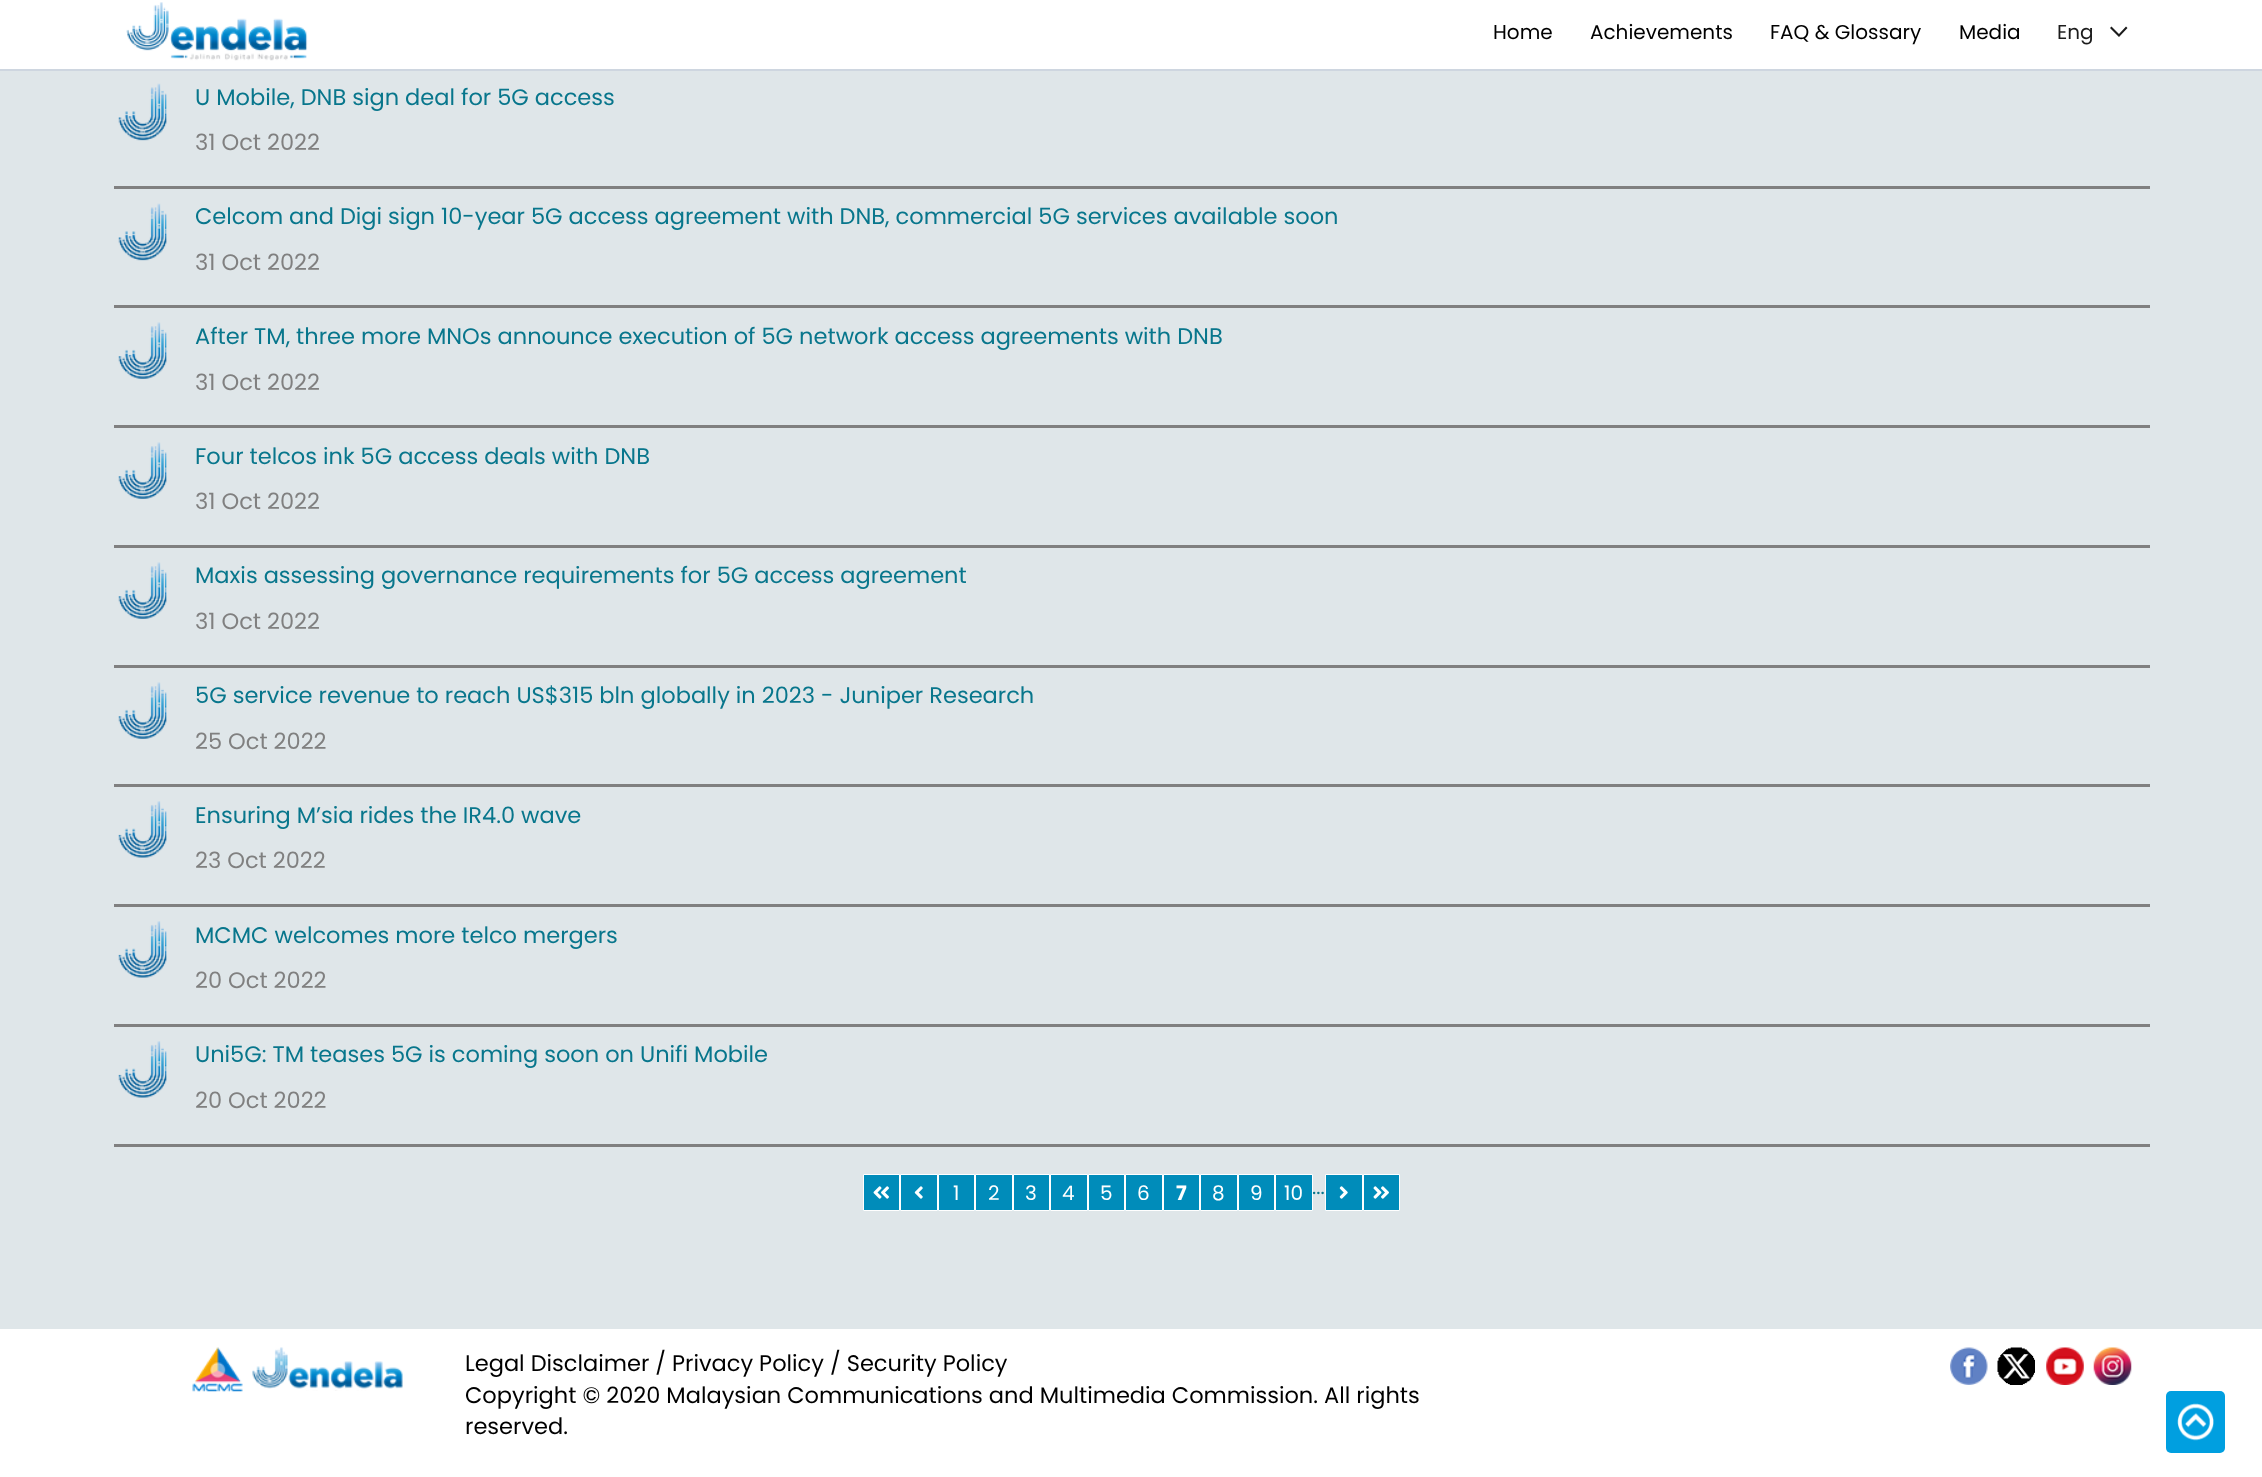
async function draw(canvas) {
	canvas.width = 2262;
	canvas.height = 1477;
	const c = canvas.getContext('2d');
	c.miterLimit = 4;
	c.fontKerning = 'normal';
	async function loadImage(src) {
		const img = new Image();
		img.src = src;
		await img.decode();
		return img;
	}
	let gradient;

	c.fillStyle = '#fff';
	c.fillRect(0, 0, 2262, 1477);
	gradient = c.createLinearGradient(1131, -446, 1131, 1330);
	gradient.addColorStop(0, '#c0c0c0');
	gradient.addColorStop(0.1, '#dfe6e9');
	c.fillStyle = gradient;
	c.fillRect(0, 69, 2262, 1260);
	c.fillStyle = '#ced6e0';
	c.filter = 'blur(0.5px)';
	c.beginPath();
	c.rect(0, 0, 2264, 71);
	c.fill();
	c.filter = 'none';
	c.fillStyle = '#fff';
	c.fillRect(0, 0, 2262, 69);
	c.drawImage(await loadImage('img1.png'), 126, 2, 182, 59);
	c.font = '20px Poppins';
	c.fillStyle = '#000';
	for (const [text, x, y] of [
		['Home', 1493, 39],
		['Achievements', 1590, 39],
		['FAQ & Glossary', 1770, 39],
		['Media', 1959, 39],
	]) {
		c.fillText(text, x, y);
	}
	c.fillStyle = '#1c1c1c';
	c.fillText('Eng', 2057, 39);
	c.beginPath();
	c.moveTo(2119, 37);
	c.lineTo(2110, 28);
	c.lineTo(2111.5, 26.5);
	c.lineTo(2119, 34);
	c.lineTo(2126, 26.5);
	c.lineTo(2127.5, 28);
	c.closePath();
	c.fill();
	c.fillStyle = '#808080';
	c.fillRect(114, 186, 2036, 3);
	c.drawImage(await loadImage('img2.png'), 118, 83, 49, 58);
	c.font = '22.5px Poppins';
	c.fillStyle = '#08768c';
	c.fillText('U Mobile, DNB sign deal for 5G access', 195, 105);
	c.fillStyle = '#808080';
	c.fillText('31 Oct 2022', 195, 150);
	c.fillRect(114, 305, 2036, 3);
	c.drawImage(await loadImage('img2.png'), 118, 203, 49, 58);
	c.fillStyle = '#08768c';
	c.fillText('Celcom and Digi sign 10-year 5G access agreement with DNB, commercial 5G services available soon', 195, 224);
	c.fillStyle = '#808080';
	c.fillText('31 Oct 2022', 195, 270);
	c.fillRect(114, 425, 2036, 3);
	c.drawImage(await loadImage('img3.png'), 118, 322, 49, 57);
	c.fillStyle = '#08768c';
	c.fillText('After TM, three more MNOs announce execution of 5G network access agreements with DNB', 195, 344);
	c.fillStyle = '#808080';
	c.fillText('31 Oct 2022', 195, 390);
	c.fillRect(114, 545, 2036, 3);
	c.drawImage(await loadImage('img3.png'), 118, 442, 49, 57);
	c.fillStyle = '#08768c';
	c.fillText('Four telcos ink 5G access deals with DNB', 195, 464);
	c.fillStyle = '#808080';
	c.fillText('31 Oct 2022', 195, 509);
	c.fillRect(114, 665, 2036, 3);
	c.drawImage(await loadImage('img3.png'), 118, 562, 49, 57);
	c.fillStyle = '#08768c';
	c.fillText('Maxis assessing governance requirements for 5G access agreement', 195, 583);
	c.fillStyle = '#808080';
	c.fillText('31 Oct 2022', 195, 629);
	c.fillRect(114, 784, 2036, 3);
	c.drawImage(await loadImage('img3.png'), 118, 682, 49, 57);
	c.fillStyle = '#08768c';
	c.fillText('5G service revenue to reach US$315 bln globally in 2023 - Juniper Research', 195, 703);
	c.fillStyle = '#808080';
	c.fillText('25 Oct 2022', 195, 749);
	c.fillRect(114, 904, 2036, 3);
	c.drawImage(await loadImage('img4.png'), 118, 801, 49, 57);
	c.fillStyle = '#08768c';
	c.fillText('Ensuring M’sia rides the IR4.0 wave', 195, 823);
	c.fillStyle = '#808080';
	c.fillText('23 Oct 2022', 195, 868);
	c.fillRect(114, 1024, 2036, 3);
	c.drawImage(await loadImage('img4.png'), 118, 921, 49, 57);
	c.fillStyle = '#08768c';
	c.fillText('MCMC welcomes more telco mergers', 195, 943);
	c.fillStyle = '#808080';
	c.fillText('20 Oct 2022', 195, 988);
	c.fillRect(114, 1144, 2036, 3);
	c.drawImage(await loadImage('img5.png'), 118, 1041, 49, 57);
	c.fillStyle = '#08768c';
	c.fillText('Uni5G: TM teases 5G is coming soon on Unifi Mobile', 195, 1062);
	c.fillStyle = '#808080';
	c.fillText('20 Oct 2022', 195, 1108);
	c.fillStyle = '#008cba';
	c.beginPath();
	c.rect(863.5, 1174.5, 36, 36);
	c.fill();
	c.strokeStyle = '#fff';
	c.stroke();
	c.drawImage(await loadImage('img6.png'), 873, 1186, 16, 13);
	c.beginPath();
	c.rect(900.5, 1174.5, 37, 36);
	c.fill();
	c.stroke();
	c.drawImage(await loadImage('img7.png'), 914, 1186, 9, 13);
	c.beginPath();
	c.rect(938.5, 1174.5, 36, 36);
	c.fill();
	c.stroke();
	c.font = '20px Poppins';
	c.fillStyle = '#fff';
	c.fillText('1', 953, 1200);
	c.fillStyle = '#008cba';
	c.beginPath();
	c.rect(975.5, 1174.5, 37, 36);
	c.fill();
	c.stroke();
	c.fillStyle = '#fff';
	c.fillText('2', 988, 1200);
	c.fillStyle = '#008cba';
	c.beginPath();
	c.rect(1013.5, 1174.5, 36, 36);
	c.fill();
	c.stroke();
	c.fillStyle = '#fff';
	c.fillText('3', 1025, 1200);
	c.fillStyle = '#008cba';
	c.beginPath();
	c.rect(1050.5, 1174.5, 37, 36);
	c.fill();
	c.stroke();
	c.fillStyle = '#fff';
	c.fillText('4', 1062, 1200);
	c.fillStyle = '#008cba';
	c.beginPath();
	c.rect(1088.5, 1174.5, 36, 36);
	c.fill();
	c.stroke();
	c.fillStyle = '#fff';
	c.fillText('5', 1100, 1200);
	c.fillStyle = '#008cba';
	c.beginPath();
	c.rect(1125.5, 1174.5, 37, 36);
	c.fill();
	c.stroke();
	c.fillStyle = '#fff';
	c.fillText('6', 1137, 1200);
	c.fillStyle = '#008cba';
	c.beginPath();
	c.rect(1163.5, 1174.5, 36, 36);
	c.fill();
	c.stroke();
	c.font = 'bold 20px Poppins';
	c.fillStyle = '#fff';
	c.fillText('7', 1176, 1200);
	c.fillStyle = '#008cba';
	c.beginPath();
	c.rect(1200.5, 1174.5, 37, 36);
	c.fill();
	c.stroke();
	c.font = '20px Poppins';
	c.fillStyle = '#fff';
	c.fillText('8', 1212, 1200);
	c.fillStyle = '#008cba';
	c.beginPath();
	c.rect(1238.5, 1174.5, 36, 36);
	c.fill();
	c.stroke();
	c.fillStyle = '#fff';
	c.fillText('9', 1250, 1200);
	c.fillStyle = '#008cba';
	c.beginPath();
	c.rect(1275.5, 1174.5, 37, 36);
	c.fill();
	c.stroke();
	c.fillStyle = '#fff';
	c.fillText('10', 1284, 1200);
	c.fillStyle = '#08768c';
	c.fillText('...', 1312, 1194);
	c.fillStyle = '#008cba';
	c.beginPath();
	c.rect(1325.5, 1174.5, 37, 36);
	c.fill();
	c.stroke();
	c.drawImage(await loadImage('img8.png'), 1339, 1186, 9, 13);
	c.beginPath();
	c.rect(1363.5, 1174.5, 36, 36);
	c.fill();
	c.stroke();
	c.drawImage(await loadImage('img9.png'), 1373, 1186, 16, 13);
	c.drawImage(await loadImage('img10.png'), 192, 1347, 51, 45);
	c.drawImage(await loadImage('img11.png'), 252, 1347, 151, 44);
	c.font = '22.5px Poppins';
	c.fillStyle = '#000';
	for (const [text, x, y] of [
		['Legal Disclaimer / Privacy Policy / Security Policy', 465, 1371],
		['Copyright © 2020 Malaysian Communications and Multimedia Commission. All rights', 465, 1403],
		['reserved.', 465, 1434],
	]) {
		c.fillText(text, x, y);
	}
	c.drawImage(await loadImage('img12.png'), 1950, 1347, 38, 38);
	c.drawImage(await loadImage('img13.png'), 1997, 1347, 38, 38);
	c.drawImage(await loadImage('img14.png'), 2046, 1347, 38, 38);
	c.drawImage(await loadImage('img15.png'), 2093, 1347, 39, 38);
	c.fillStyle = '#009fe0';
	c.beginPath();
	c.roundRect(2166, 1391, 59, 62, 5);
	c.fill();
	c.drawImage(await loadImage('img16.png'), 2177, 1403, 37, 38);
}

draw(document.querySelector('canvas'));
